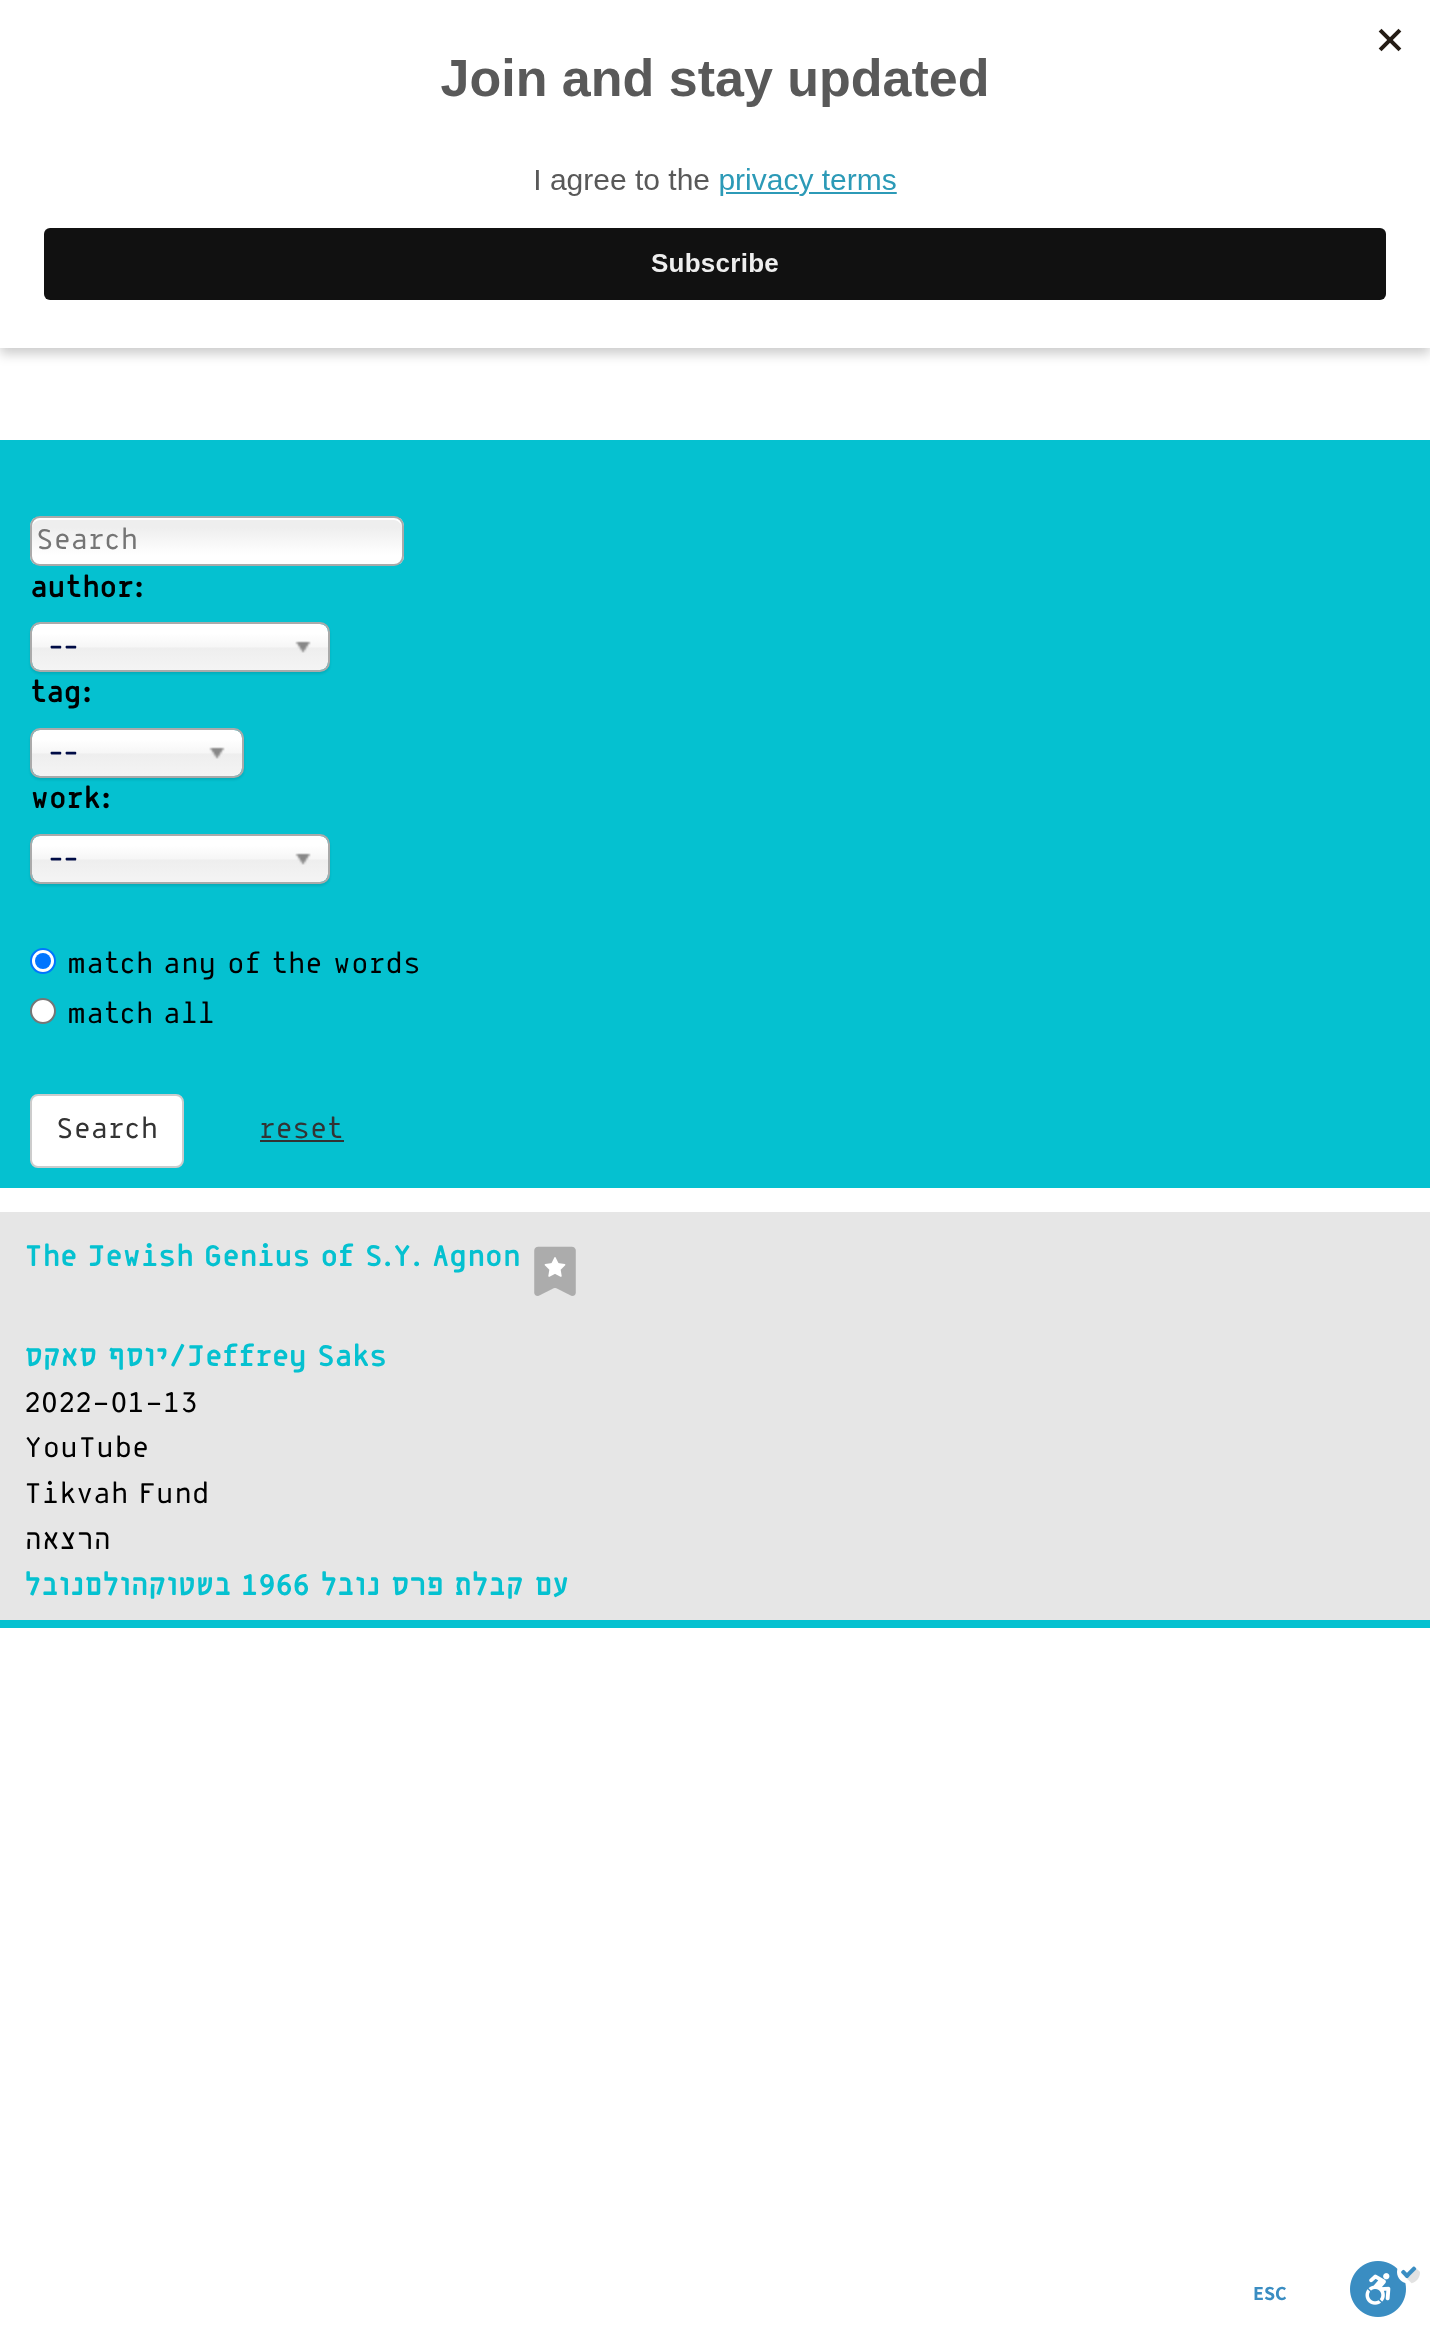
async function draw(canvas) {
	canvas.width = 1430;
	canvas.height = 2329;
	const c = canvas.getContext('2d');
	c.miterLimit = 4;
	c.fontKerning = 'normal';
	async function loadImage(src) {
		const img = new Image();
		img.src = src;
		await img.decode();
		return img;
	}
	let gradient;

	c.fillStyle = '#fff';
	c.fillRect(0, 0, 1430, 2329);
	c.fillStyle = '#00000033';
	c.filter = 'blur(6px)';
	c.beginPath();
	c.rect(0, 6, 1430, 348);
	c.fill();
	c.filter = 'none';
	c.fillStyle = '#fff';
	c.fillRect(0, 0, 1430, 348);
	c.drawImage(await loadImage('img1.png'), 44, 28, 1358, 272);
	c.fillStyle = '#05c1d0';
	c.fillRect(0, 440, 1430, 748);
	c.save();
	c.beginPath();
	c.roundRect(30, 516, 374, 50, 10);
	c.clip();
	gradient = c.createLinearGradient(217, 518, 217, 564);
	gradient.addColorStop(0.2, '#eee');
	gradient.addColorStop(0.8, '#fff');
	c.fillStyle = gradient;
	c.fillRect(30, 518, 374, 46);
	c.restore();
	c.fillStyle = '#fff';
	c.beginPath();
	c.moveTo(40, 520);
	c.lineTo(394, 520);
	c.bezierCurveTo(398, 520, 402, 524, 402, 528);
	c.bezierCurveTo(402, 523, 400, 518, 394, 518);
	c.lineTo(38, 518);
	c.bezierCurveTo(33, 519, 32, 524, 32, 528);
	c.bezierCurveTo(32, 524, 36, 520, 40, 520);
	c.closePath();
	c.fill();
	c.beginPath();
	c.roundRect(31, 517, 372, 48, 9);
	c.strokeStyle = '#aaa';
	c.lineWidth = 2;
	c.stroke();
	c.font = '32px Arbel';
	c.fillStyle = '#757575';
	c.fillText('Search', 36, 549);
	c.font = 'bold 32px Arbel';
	c.fillStyle = '#000';
	c.fillText('author:', 30, 597);
	c.fillStyle = '#0000001a';
	c.filter = 'blur(1px)';
	c.beginPath();
	c.roundRect(30, 624, 300, 50, 10);
	c.fill();
	c.filter = 'none';
	gradient = c.createLinearGradient(180, 624, 180, 670);
	gradient.addColorStop(0.2, '#fff');
	gradient.addColorStop(0.5, '#f6f6f6');
	gradient.addColorStop(0.52, '#eee');
	gradient.addColorStop(1, '#f4f4f4');
	c.fillStyle = gradient;
	c.beginPath();
	c.roundRect(32, 624, 296, 46, 8);
	c.fill();
	c.beginPath();
	c.roundRect(31, 623, 298, 48, 9);
	c.stroke();
	c.font = 'bold 26px Arbel';
	c.fillStyle = '#000c46';
	c.fillText('--', 48, 654);
	c.drawImage(await loadImage('img2.png'), 295, 641, 16, 12);
	c.font = 'bold 32px Arbel';
	c.fillStyle = '#000';
	c.fillText('tag:', 30, 702);
	c.fillStyle = '#0000001a';
	c.filter = 'blur(1px)';
	c.beginPath();
	c.roundRect(30, 730, 214, 50, 10);
	c.fill();
	c.filter = 'none';
	gradient = c.createLinearGradient(137, 730, 137, 776);
	gradient.addColorStop(0.2, '#fff');
	gradient.addColorStop(0.5, '#f6f6f6');
	gradient.addColorStop(0.52, '#eee');
	gradient.addColorStop(1, '#f4f4f4');
	c.fillStyle = gradient;
	c.beginPath();
	c.roundRect(32, 730, 210, 46, 8);
	c.fill();
	c.beginPath();
	c.roundRect(31, 729, 212, 48, 9);
	c.stroke();
	c.font = 'bold 26px Arbel';
	c.fillStyle = '#000c46';
	c.fillText('--', 48, 760);
	c.drawImage(await loadImage('img2.png'), 209, 747, 16, 12);
	c.font = 'bold 32px Arbel';
	c.fillStyle = '#000';
	c.fillText('work:', 30, 808);
	c.fillStyle = '#0000001a';
	c.filter = 'blur(1px)';
	c.beginPath();
	c.roundRect(30, 836, 300, 50, 10);
	c.fill();
	c.filter = 'none';
	gradient = c.createLinearGradient(180, 836, 180, 882);
	gradient.addColorStop(0.2, '#fff');
	gradient.addColorStop(0.5, '#f6f6f6');
	gradient.addColorStop(0.52, '#eee');
	gradient.addColorStop(1, '#f4f4f4');
	c.fillStyle = gradient;
	c.beginPath();
	c.roundRect(32, 836, 296, 46, 8);
	c.fill();
	c.beginPath();
	c.roundRect(31, 835, 298, 48, 9);
	c.stroke();
	c.font = 'bold 26px Arbel';
	c.fillStyle = '#000c46';
	c.fillText('--', 48, 866);
	c.drawImage(await loadImage('img2.png'), 295, 853, 16, 12);
	c.fillStyle = '#fff';
	c.beginPath();
	c.arc(43, 961, 12, 0, 2 * Math.PI);
	c.fill();
	c.strokeStyle = '#0075ff';
	c.stroke();
	c.fillStyle = '#0075ff';
	c.beginPath();
	c.arc(43, 961, 8, 0, 2 * Math.PI);
	c.fill();
	c.font = '32px Arbel';
	c.fillStyle = '#000';
	c.fillText('match any of the words', 66, 973);
	c.fillStyle = '#fff';
	c.beginPath();
	c.arc(43, 1011, 12, 0, 2 * Math.PI);
	c.fill();
	c.strokeStyle = '#767676';
	c.stroke();
	c.fillStyle = '#000';
	c.fillText('match all', 66, 1023);
	c.fillStyle = '#fff';
	c.beginPath();
	c.roundRect(31, 1095, 152, 72, 7);
	c.fill();
	c.strokeStyle = '#ccc';
	c.stroke();
	c.fillStyle = '#333';
	c.fillText('Search', 56, 1138);
	c.fillText('reset', 259, 1138);
	for (const [x, y, w, h, color] of [
		[260, 1140, 84, 2, '#333'],
		[0, 1212, 1430, 408, '#e6e6e6'],
		[0, 1620, 1430, 8, '#05c1d0'],
	]) {
		c.fillStyle = color;
		c.fillRect(x, y, w, h);
	}
	c.font = 'bold 32px Arbel';
	c.fillText('The Jewish Genius of S.Y. Agnon', 24, 1266);
	c.drawImage(await loadImage('img3.png'), 534, 1246, 42, 50);
	c.drawImage(await loadImage('img4.png'), 544, 1257, 22, 20);
	c.direction = 'rtl';
	c.fillText('יוסף סאקס', 168, 1366);
	c.direction = 'ltr';
	c.fillText('/Jeffrey Saks', 168, 1366);
	c.font = '32px Arbel';
	c.fillStyle = '#000';
	for (const [text, x, y] of [
		['2022-01-13', 24, 1412],
		['YouTube', 24, 1457],
		['Tikvah Fund', 24, 1503],
	]) {
		c.fillText(text, x, y);
	}
	c.direction = 'rtl';
	c.fillText('הרצאה', 111, 1549);
	c.font = 'bold 32px Arbel';
	c.fillStyle = '#05c1d0';
	c.fillText('נובל', 84, 1595);
	c.fillText('בשטוקהולם', 231, 1595);
	c.direction = 'ltr';
	c.fillText('1966', 241, 1595);
	c.direction = 'rtl';
	c.fillText('עם קבלת פרס נובל', 568, 1595);
	c.direction = 'ltr';
	c.font = 'bold 20px Assistant';
	c.fillStyle = '#3a8dc2';
	c.fillText('ESC', 1253, 2300);
	c.drawImage(await loadImage('img5.png'), 1350, 2261, 70, 56);
}

draw(document.querySelector('canvas'));
